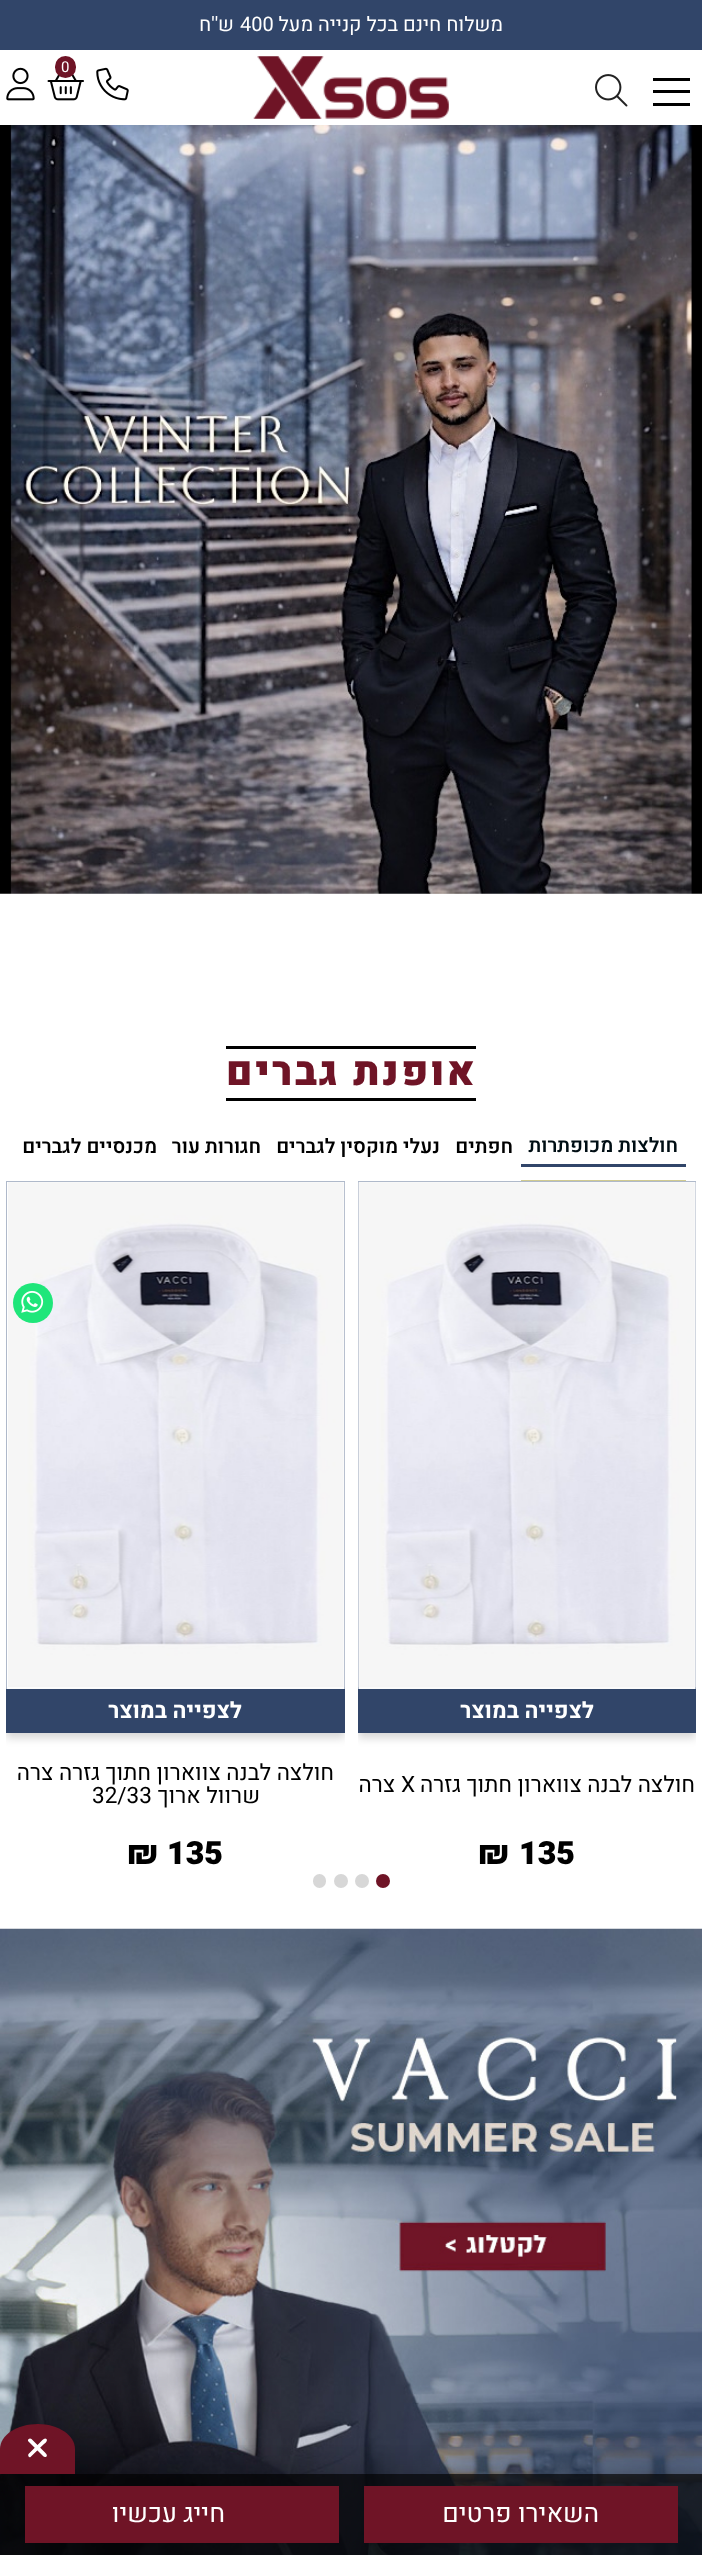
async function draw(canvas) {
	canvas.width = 702;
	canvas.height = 2555;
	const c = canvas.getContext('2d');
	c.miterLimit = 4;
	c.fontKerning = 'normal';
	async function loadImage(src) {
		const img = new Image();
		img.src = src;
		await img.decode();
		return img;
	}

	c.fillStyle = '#fff';
	c.fillRect(0, 0, 702, 2555);
	c.fillStyle = '#314569';
	c.fillRect(0, 0, 702, 50);
	c.direction = 'rtl';
	c.font = '20px Heebo';
	c.fillStyle = '#fff';
	c.fillText('משלוח חינם בכל קנייה מעל', 503, 31);
	c.direction = 'ltr';
	c.fillText('400', 240, 31);
	c.direction = 'rtl';
	c.fillText('ש\'\'ח', 234, 31);
	c.drawImage(await loadImage('img1.png'), 253, 56, 196, 63);
	c.drawImage(await loadImage('img2.png'), 96, 67, 33, 34);
	c.drawImage(await loadImage('img3.png'), 47, 74, 37, 27);
	c.fillStyle = '#6f1426';
	c.beginPath();
	c.roundRect(55, 56, 21, 22, 10.5);
	c.fill();
	c.direction = 'ltr';
	c.font = '15px Heebo';
	c.fillStyle = '#fff';
	c.fillText('0', 61, 72);
	c.drawImage(await loadImage('img4.png'), 6, 67, 29, 34);
	for (const [x, y, w, h, color] of [
		[653, 103, 37, 3, '#000'],
		[653, 90, 37, 3, '#000'],
		[653, 78, 37, 3, '#000'],
	]) {
		c.fillStyle = color;
		c.fillRect(x, y, w, h);
	}
	c.drawImage(await loadImage('img5.png'), 595, 74, 33, 33);
	c.drawImage(await loadImage('img6.png'), 0, 125, 702, 769);
	c.fillRect(226, 1046, 250, 3);
	c.fillRect(226, 1098, 250, 3);
	c.letterSpacing = '2.5px';
	c.direction = 'rtl';
	c.font = '900 40px Heebo';
	c.fillStyle = '#6f1426';
	c.fillText('אופנת גברים', 477, 1085);
	c.fillStyle = '#314569';
	c.fillRect(521, 1164, 165, 3);
	c.letterSpacing = '0px';
	c.font = '600 20px Heebo';
	c.fillStyle = '#000e14';
	c.fillText('חולצות מכופתרות', 678, 1152);
	c.fillStyle = '#d0ca90';
	c.fillRect(521, 1180, 165, 1);
	c.fillStyle = '#000';
	for (const [text, x, y] of [
		['חפתים', 513, 1153],
		['נעלי מוקסין לגברים', 440, 1153],
		['חגורות עור', 261, 1153],
		['מכנסיים לגברים', 157, 1153],
	]) {
		c.fillText(text, x, y);
	}
	for (const [x, y, w, h, color] of [
		[358, 1181, 338, 1, '#afb9ca'],
		[695, 1181, 1, 508, '#afb9ca'],
		[358, 1181, 1, 508, '#afb9ca'],
	]) {
		c.fillStyle = color;
		c.fillRect(x, y, w, h);
	}
	c.drawImage(await loadImage('img7.png'), 358, 1182, 338, 506);
	c.save();
	c.beginPath();
	c.rect(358, 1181, 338, 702);
	c.clip();
	c.fillStyle = '#00000029';
	c.filter = 'blur(4.5px)';
	c.beginPath();
	c.rect(358, 1694, 338, 44);
	c.fill();
	c.filter = 'none';
	c.restore();
	c.fillStyle = '#314569';
	c.fillRect(358, 1689, 338, 44);
	c.font = 'bold 22.5px Heebo';
	c.fillStyle = '#fff';
	c.fillText('לצפייה במוצר', 594, 1718);
	c.font = '22.5px Heebo';
	c.fillStyle = '#000';
	c.fillText('חולצה לבנה צווארון חתוך גזרה', 695, 1792);
	c.direction = 'ltr';
	c.fillText('X', 401, 1792);
	c.direction = 'rtl';
	c.fillText('צרה', 395, 1792);
	c.direction = 'ltr';
	c.font = '900 32px Heebo';
	c.fillText('135', 519, 1864);
	c.fillText('₪', 478, 1864);
	for (const [x, y, w, h, color] of [
		[6, 1181, 339, 1, '#afb9ca'],
		[344, 1181, 1, 508, '#afb9ca'],
		[6, 1181, 1, 508, '#afb9ca'],
	]) {
		c.fillStyle = color;
		c.fillRect(x, y, w, h);
	}
	c.drawImage(await loadImage('img8.png'), 8, 1182, 337, 505);
	c.save();
	c.beginPath();
	c.rect(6, 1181, 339, 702);
	c.clip();
	c.fillStyle = '#00000029';
	c.filter = 'blur(4.5px)';
	c.beginPath();
	c.rect(6, 1694, 339, 44);
	c.fill();
	c.filter = 'none';
	c.restore();
	c.fillStyle = '#314569';
	c.fillRect(6, 1689, 339, 44);
	c.direction = 'rtl';
	c.font = 'bold 22.5px Heebo';
	c.fillStyle = '#fff';
	c.fillText('לצפייה במוצר', 242, 1718);
	c.font = '22.5px Heebo';
	c.fillStyle = '#000';
	c.fillText('חולצה לבנה צווארון חתוך גזרה צרה', 334, 1780);
	c.fillText('שרוול ארוך', 260, 1803);
	c.direction = 'ltr';
	c.fillText('32/33', 92, 1803);
	c.font = '900 32px Heebo';
	c.fillText('135', 167, 1864);
	c.fillText('₪', 127, 1864);
	c.fillStyle = '#6f1426';
	c.beginPath();
	c.arc(383, 1881, 7, 0, 2 * Math.PI);
	c.fill();
	c.fillStyle = '#d7d7d7';
	c.beginPath();
	c.arc(362, 1881, 7, 0, 2 * Math.PI);
	c.fill();
	c.beginPath();
	c.arc(341, 1881, 7, 0, 2 * Math.PI);
	c.fill();
	c.beginPath();
	c.roundRect(313, 1874, 13, 14, 6.5);
	c.fill();
	c.drawImage(await loadImage('img9.png'), 0, 1928, 702, 627);
	c.fillStyle = '#1fe67a';
	c.beginPath();
	c.arc(33, 1303, 20, 0, 2 * Math.PI);
	c.fill();
	c.drawImage(await loadImage('img10.png'), 21, 1290, 23, 23);
	c.save();
	c.beginPath();
	c.rect(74, 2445, 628, 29);
	c.clip();
	c.fillStyle = '#0000004d';
	c.filter = 'blur(19px)';
	c.beginPath();
	c.rect(0, 2474, 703, 81);
	c.fill();
	c.filter = 'none';
	c.restore();
	c.fillStyle = '#000000b3';
	c.fillRect(0, 2474, 702, 81);
	c.fillStyle = '#6f1426';
	c.beginPath();
	c.moveTo(38, 2424);
	c.bezierCurveTo(58, 2424, 75, 2435, 75, 2449);
	c.lineTo(75, 2474);
	c.lineTo(0, 2474);
	c.lineTo(0, 2449);
	c.bezierCurveTo(0, 2435, 17, 2424, 38, 2424);
	c.closePath();
	c.fill();
	c.fillStyle = '#fff';
	c.beginPath();
	c.moveTo(28.5, 2454);
	c.lineTo(41, 2441.5);
	c.bezierCurveTo(42, 2440.5, 44.5, 2437, 46.5, 2439);
	c.bezierCurveTo(48, 2441, 45, 2443.5, 44, 2444);
	c.lineTo(30.5, 2457);
	c.bezierCurveTo(29, 2458, 27.5, 2455.5, 28.5, 2454);
	c.closePath();
	c.fill();
	c.beginPath();
	c.moveTo(31.5, 2439);
	c.lineTo(44, 2451.5);
	c.bezierCurveTo(45, 2452.5, 48, 2455, 46.5, 2456.5);
	c.bezierCurveTo(44.5, 2458.5, 42, 2455, 41, 2454);
	c.lineTo(28, 2441);
	c.bezierCurveTo(27.5, 2439, 30, 2437.5, 31.5, 2439);
	c.closePath();
	c.fill();
	c.fillStyle = '#6f1426';
	c.fillRect(364, 2486, 314, 57);
	c.direction = 'rtl';
	c.font = '26px Heebo';
	c.fillStyle = '#fff';
	c.fillText('השאירו פרטים', 599, 2522);
	c.fillStyle = '#6f1426';
	c.fillRect(25, 2486, 314, 57);
	c.fillStyle = '#fff';
	c.fillText('חייג עכשיו', 225, 2522);
}

draw(document.querySelector('canvas'));
